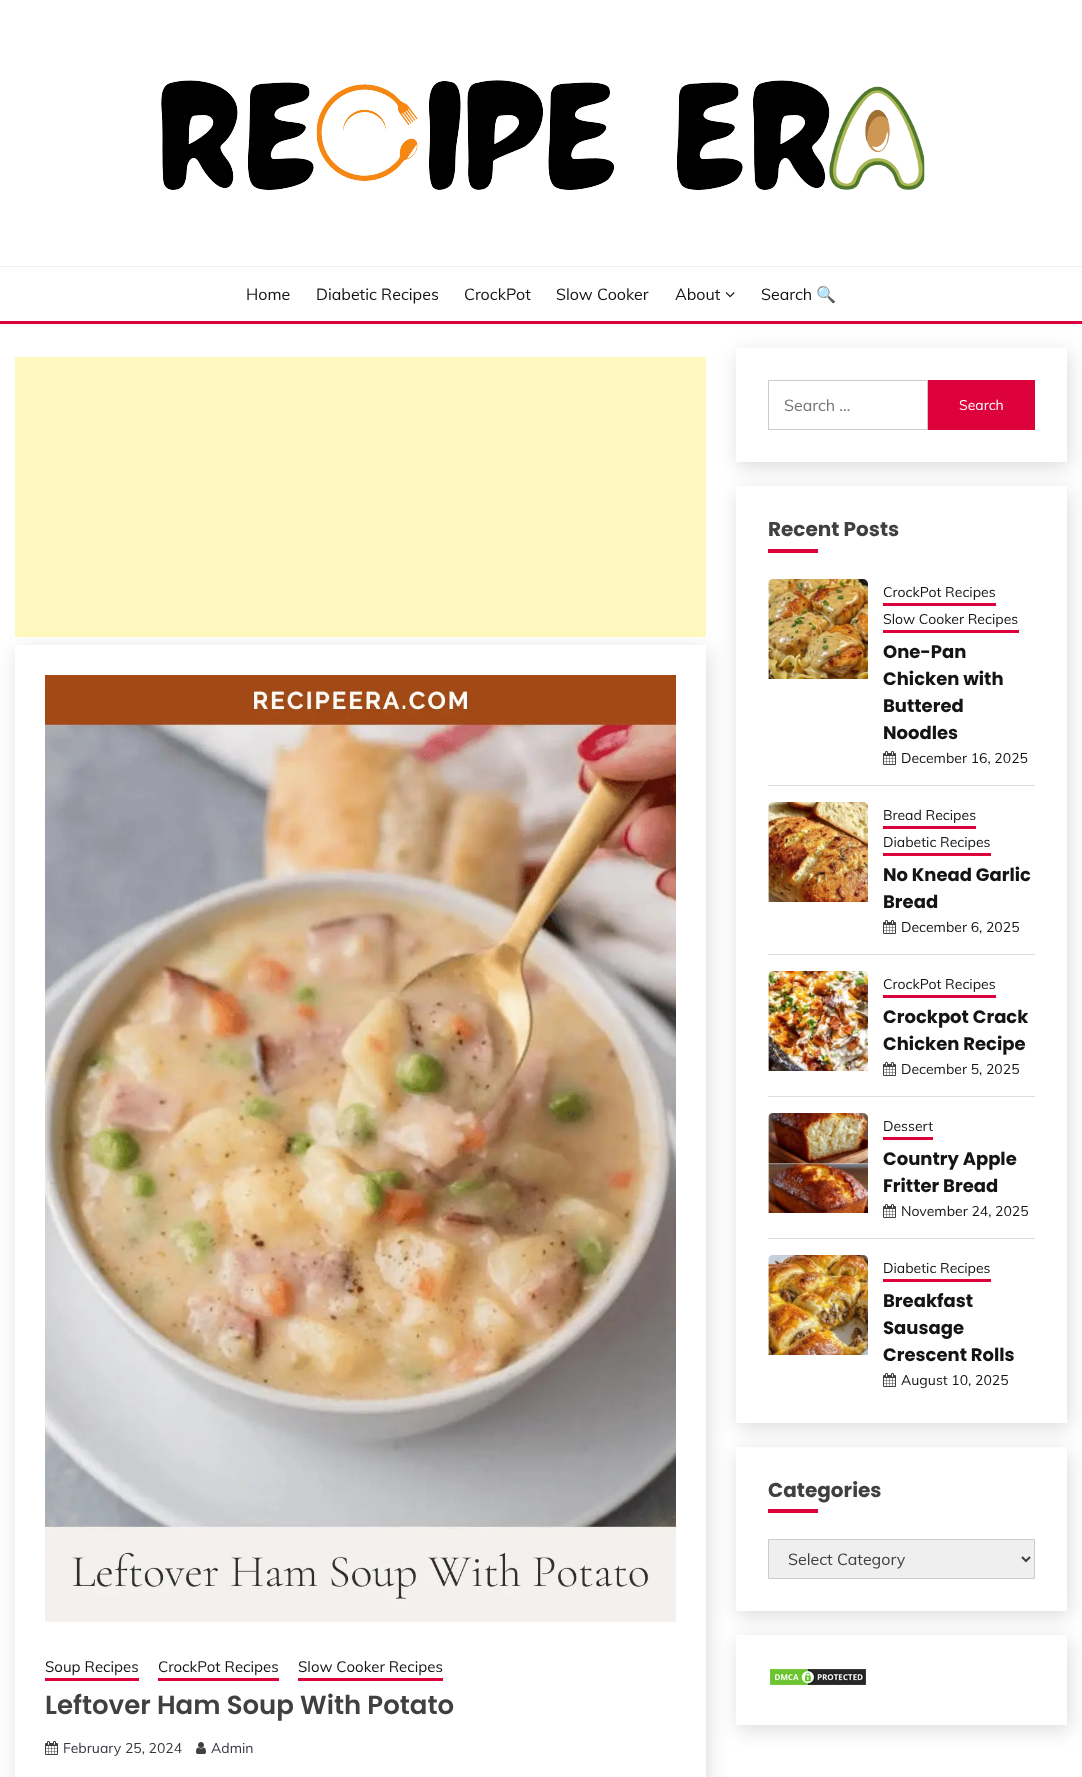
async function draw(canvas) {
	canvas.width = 1082;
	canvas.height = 1777;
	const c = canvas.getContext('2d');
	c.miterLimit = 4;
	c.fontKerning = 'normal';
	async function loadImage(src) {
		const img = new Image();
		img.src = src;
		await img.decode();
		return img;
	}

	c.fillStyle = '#fff';
	c.fillRect(0, 0, 1082, 1777);
	c.fillStyle = '#eee';
	c.fillRect(0, 266, 1082, 1);
	c.drawImage(await loadImage('img1.png'), 161, 80, 764, 110);
	c.save();
	c.beginPath();
	c.moveTo(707, 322);
	c.lineTo(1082, 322);
	c.lineTo(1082, 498);
	c.lineTo(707, 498);
	c.closePath();
	c.moveTo(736, 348);
	c.lineTo(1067, 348);
	c.lineTo(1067, 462);
	c.lineTo(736, 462);
	c.closePath();
	c.clip('evenodd');
	c.fillStyle = '#00000024';
	c.filter = 'blur(10px)';
	c.beginPath();
	c.rect(738, 353, 331, 114);
	c.fill();
	c.filter = 'none';
	c.restore();
	c.fillStyle = '#dd023c';
	c.fillRect(0, 321, 1082, 3);
	c.font = '16px Muli';
	c.fillStyle = '#141413';
	for (const [text, x, y] of [
		['Home', 246, 300],
		['Diabetic Recipes', 316, 300],
		['CrockPot', 464, 300],
		['Slow Cooker', 556, 300],
		['About', 675, 300],
	]) {
		c.fillText(text, x, y);
	}
	c.drawImage(await loadImage('img2.png'), 725, 292, 10, 6);
	c.fillText('Search', 761, 300);
	c.font = '16px Noto Color Emoji';
	c.fillText('🔍', 816, 300);
	c.strokeStyle = '#ccc';
	c.strokeRect(768.5, 380.5, 159, 49);
	c.font = '16px Muli';
	c.fillStyle = '#757575';
	c.fillText('Search …', 784, 411);
	c.fillStyle = '#dd023c';
	c.fillRect(928, 380, 107, 50);
	c.font = '14px Muli';
	c.fillStyle = '#fff';
	c.fillText('Search', 959, 410);
	c.save();
	c.beginPath();
	c.moveTo(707, 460);
	c.lineTo(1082, 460);
	c.lineTo(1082, 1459);
	c.lineTo(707, 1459);
	c.closePath();
	c.moveTo(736, 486);
	c.lineTo(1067, 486);
	c.lineTo(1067, 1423);
	c.lineTo(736, 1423);
	c.closePath();
	c.clip('evenodd');
	c.fillStyle = '#00000024';
	c.filter = 'blur(10px)';
	c.beginPath();
	c.rect(738, 491, 331, 937);
	c.fill();
	c.filter = 'none';
	c.restore();
	c.font = 'bold 20px Poppins';
	c.fillStyle = '#404040';
	c.fillText('Recent Posts', 768, 536);
	c.fillStyle = '#dd023c';
	c.fillRect(768, 549, 50, 4);
	c.fillStyle = '#ddd';
	c.fillRect(768, 785, 267, 1);
	c.drawImage(await loadImage('img3.png'), 768, 579, 100, 100);
	c.font = '14px Muli';
	c.fillStyle = '#141413';
	c.fillText('CrockPot Recipes', 883, 597);
	c.fillStyle = '#dd023c';
	c.fillRect(883, 603, 113, 3);
	c.fillStyle = '#141413';
	c.fillText('Slow Cooker Recipes', 883, 624);
	c.fillStyle = '#dd023c';
	c.fillRect(883, 630, 136, 3);
	c.font = 'bold 18px Poppins';
	c.fillStyle = '#141413';
	for (const [text, x, y] of [
		['One-Pan', 883, 658],
		['Chicken with', 883, 685],
		['Buttered', 883, 712],
		['Noodles', 883, 739],
	]) {
		c.fillText(text, x, y);
	}
	c.drawImage(await loadImage('img4.png'), 883, 751, 13, 14);
	c.font = '14px Muli';
	c.fillText('December 16, 2025', 901, 763);
	c.fillStyle = '#ddd';
	c.fillRect(768, 954, 267, 1);
	c.drawImage(await loadImage('img5.png'), 768, 802, 100, 100);
	c.fillStyle = '#141413';
	c.fillText('Bread Recipes', 883, 820);
	c.fillStyle = '#dd023c';
	c.fillRect(883, 826, 93, 3);
	c.fillStyle = '#141413';
	c.fillText('Diabetic Recipes', 883, 847);
	c.fillStyle = '#dd023c';
	c.fillRect(883, 853, 108, 3);
	c.font = 'bold 18px Poppins';
	c.fillStyle = '#141413';
	c.fillText('No Knead Garlic', 883, 881);
	c.fillText('Bread', 883, 908);
	c.drawImage(await loadImage('img4.png'), 883, 920, 13, 14);
	c.font = '14px Muli';
	c.fillText('December 6, 2025', 901, 932);
	c.fillStyle = '#ddd';
	c.fillRect(768, 1096, 267, 1);
	c.drawImage(await loadImage('img6.png'), 768, 971, 100, 100);
	c.fillStyle = '#141413';
	c.fillText('CrockPot Recipes', 883, 989);
	c.fillStyle = '#dd023c';
	c.fillRect(883, 995, 113, 3);
	c.font = 'bold 18px Poppins';
	c.fillStyle = '#141413';
	c.fillText('Crockpot Crack', 883, 1023);
	c.fillText('Chicken Recipe', 883, 1050);
	c.drawImage(await loadImage('img4.png'), 883, 1062, 13, 14);
	c.font = '14px Muli';
	c.fillText('December 5, 2025', 901, 1074);
	c.fillStyle = '#ddd';
	c.fillRect(768, 1238, 267, 1);
	c.drawImage(await loadImage('img7.png'), 768, 1113, 100, 100);
	c.fillStyle = '#141413';
	c.fillText('Dessert', 883, 1131);
	c.fillStyle = '#dd023c';
	c.fillRect(883, 1137, 50, 3);
	c.font = 'bold 18px Poppins';
	c.fillStyle = '#141413';
	c.fillText('Country Apple', 883, 1165);
	c.fillText('Fritter Bread', 883, 1192);
	c.drawImage(await loadImage('img4.png'), 883, 1204, 13, 14);
	c.font = '14px Muli';
	c.fillText('November 24, 2025', 901, 1216);
	c.drawImage(await loadImage('img8.png'), 768, 1255, 100, 100);
	c.fillText('Diabetic Recipes', 883, 1273);
	c.fillStyle = '#dd023c';
	c.fillRect(883, 1279, 108, 3);
	c.font = 'bold 18px Poppins';
	c.fillStyle = '#141413';
	for (const [text, x, y] of [
		['Breakfast', 883, 1307],
		['Sausage', 883, 1334],
		['Crescent Rolls', 883, 1361],
	]) {
		c.fillText(text, x, y);
	}
	c.drawImage(await loadImage('img4.png'), 883, 1373, 13, 14);
	c.font = '14px Muli';
	c.fillText('August 10, 2025', 901, 1385);
	c.save();
	c.beginPath();
	c.moveTo(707, 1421);
	c.lineTo(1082, 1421);
	c.lineTo(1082, 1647);
	c.lineTo(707, 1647);
	c.closePath();
	c.moveTo(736, 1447);
	c.lineTo(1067, 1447);
	c.lineTo(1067, 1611);
	c.lineTo(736, 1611);
	c.closePath();
	c.clip('evenodd');
	c.fillStyle = '#00000024';
	c.filter = 'blur(10px)';
	c.beginPath();
	c.rect(738, 1452, 331, 164);
	c.fill();
	c.filter = 'none';
	c.restore();
	c.font = 'bold 20px Poppins';
	c.fillStyle = '#404040';
	c.fillText('Categories', 768, 1497);
	c.fillStyle = '#dd023c';
	c.fillRect(768, 1509, 50, 4);
	c.fillStyle = '#efefef';
	c.beginPath();
	c.rect(768.5, 1539.5, 266, 39);
	c.fill();
	c.stroke();
	c.beginPath();
	c.moveTo(1022, 1557);
	c.lineTo(1026, 1561);
	c.lineTo(1030, 1557);
	c.strokeStyle = '#404040';
	c.lineWidth = 2;
	c.stroke();
	c.font = '16px Muli';
	c.fillStyle = '#404040';
	c.fillText('Select Category', 788, 1565);
	c.save();
	c.beginPath();
	c.moveTo(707, 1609);
	c.lineTo(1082, 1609);
	c.lineTo(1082, 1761);
	c.lineTo(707, 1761);
	c.closePath();
	c.moveTo(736, 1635);
	c.lineTo(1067, 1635);
	c.lineTo(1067, 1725);
	c.lineTo(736, 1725);
	c.closePath();
	c.clip('evenodd');
	c.fillStyle = '#00000024';
	c.filter = 'blur(10px)';
	c.beginPath();
	c.rect(738, 1640, 331, 90);
	c.fill();
	c.filter = 'none';
	c.restore();
	c.drawImage(await loadImage('img9.png'), 770, 1669, 96, 16);
	c.fillStyle = '#fff9c0';
	c.fillRect(15, 357, 691, 280);
	c.save();
	c.beginPath();
	c.moveTo(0, 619);
	c.lineTo(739, 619);
	c.lineTo(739, 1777);
	c.lineTo(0, 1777);
	c.closePath();
	c.moveTo(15, 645);
	c.lineTo(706, 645);
	c.lineTo(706, 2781);
	c.lineTo(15, 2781);
	c.closePath();
	c.clip('evenodd');
	c.fillStyle = '#00000024';
	c.filter = 'blur(10px)';
	c.beginPath();
	c.rect(17, 650, 691, 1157);
	c.fill();
	c.filter = 'none';
	c.restore();
	c.drawImage(await loadImage('img10.png'), 45, 675, 631, 947);
	c.font = '15px Muli';
	c.fillStyle = '#141413';
	c.fillText('Soup Recipes', 45, 1672);
	c.fillStyle = '#dd023c';
	c.fillRect(45, 1678, 94, 3);
	c.fillStyle = '#141413';
	c.fillText('CrockPot Recipes', 158, 1672);
	c.fillStyle = '#dd023c';
	c.fillRect(158, 1678, 121, 3);
	c.fillStyle = '#141413';
	c.fillText('Slow Cooker Recipes', 298, 1672);
	c.fillStyle = '#dd023c';
	c.fillRect(298, 1678, 145, 3);
	c.font = '600 26px Poppins';
	c.fillStyle = '#404040';
	c.fillText('Leftover Ham Soup With Potato', 45, 1714);
	c.drawImage(await loadImage('img4.png'), 45, 1741, 13, 14);
	c.font = '14px Muli';
	c.fillStyle = '#37373f';
	c.fillText('February 25, 2024', 63, 1753);
	c.drawImage(await loadImage('img11.png'), 196, 1742, 10, 12);
	c.fillText('Admin', 211, 1753);
}

draw(document.querySelector('canvas'));
